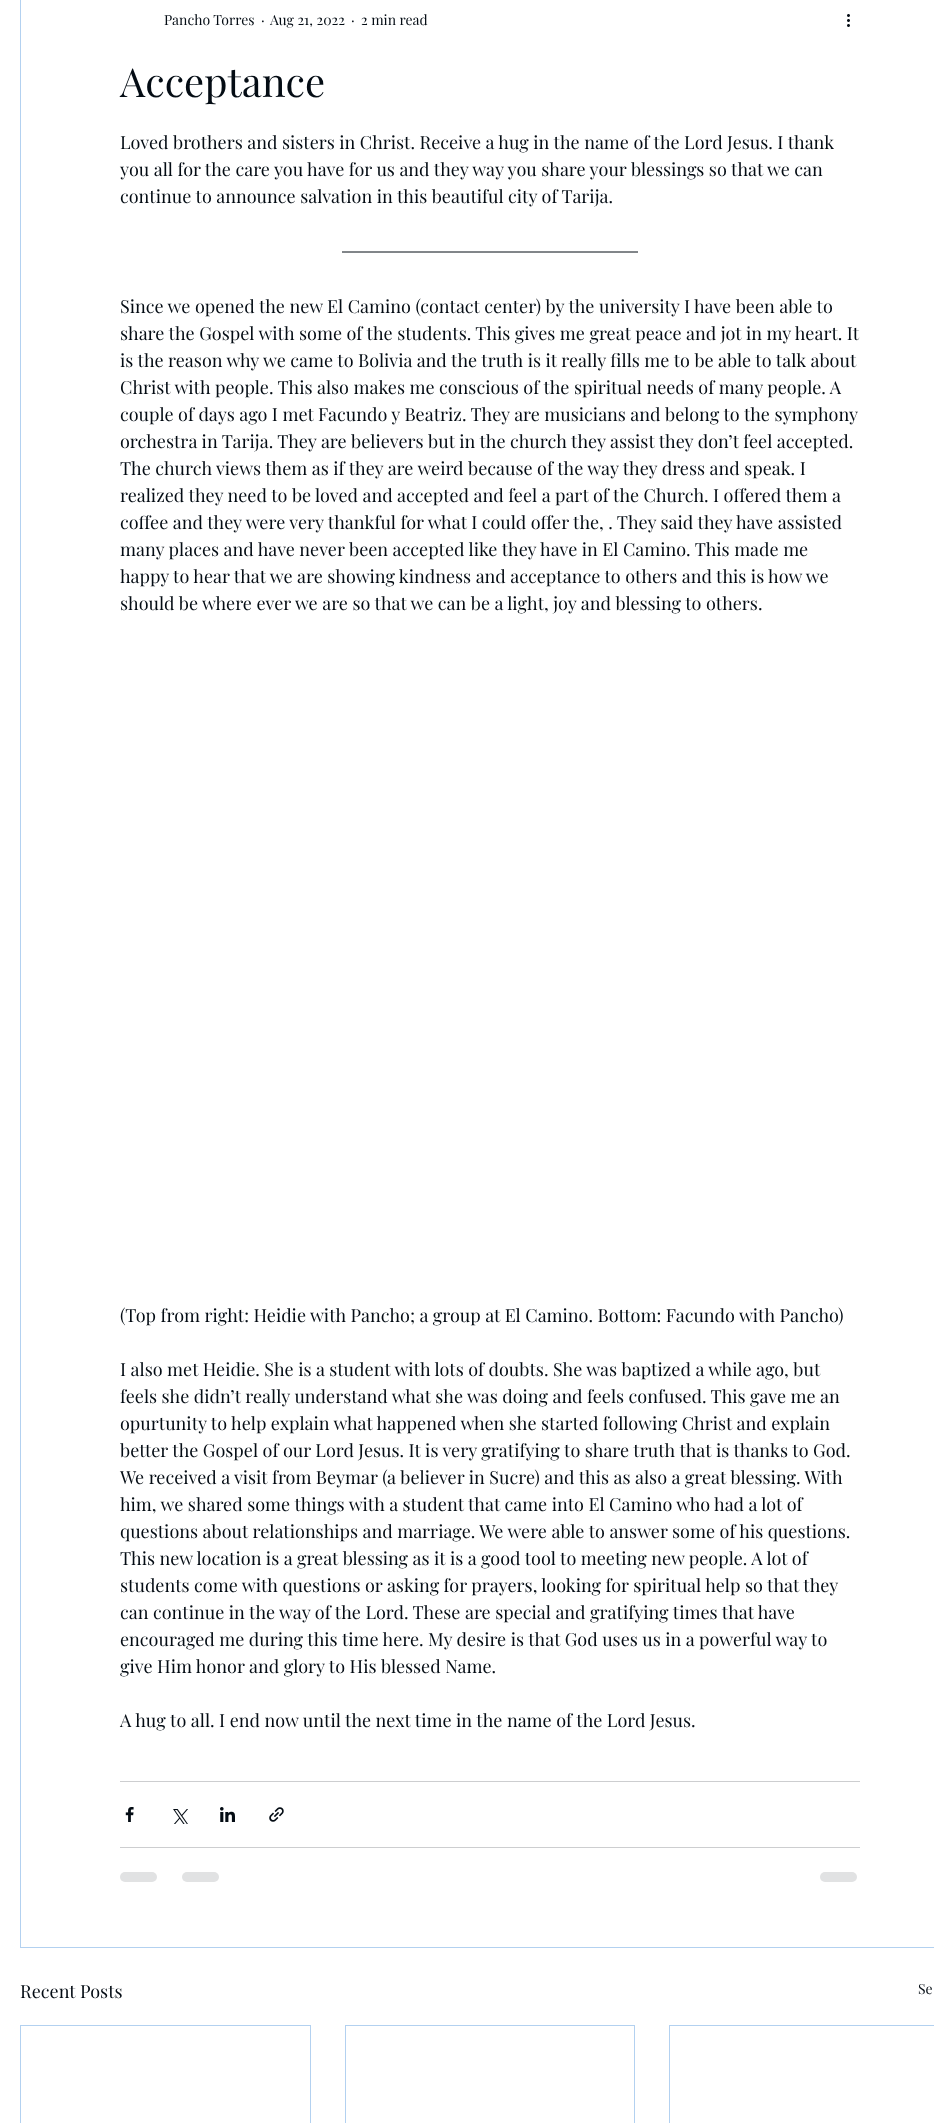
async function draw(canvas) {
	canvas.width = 934;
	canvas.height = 2123;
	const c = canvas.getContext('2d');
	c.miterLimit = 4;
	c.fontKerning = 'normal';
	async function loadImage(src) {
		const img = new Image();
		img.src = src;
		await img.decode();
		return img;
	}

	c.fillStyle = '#fff';
	c.fillRect(0, 0, 934, 2123);
	c.strokeStyle = '#b3d1f0';
	c.strokeRect(20.5, -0.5, 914, 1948);
	c.font = '14px Playfair Display';
	c.fillStyle = '#040c14';
	for (const [text, x, y] of [
		['Pancho Torres', 164, 25],
		['·', 261, 25],
		['Aug 21, 2022', 270, 25],
		['·', 351, 25],
		['2 min read', 361, 25],
	]) {
		c.fillText(text, x, y);
	}
	c.drawImage(await loadImage('img1.png'), 847, 14, 3, 13);
	c.font = '40px Playfair Display';
	c.fillText('Acceptance', 120, 97);
	c.font = '18px Playfair Display';
	for (const [text, x, y] of [
		['Loved brothers and sisters in Christ. Receive a hug in the name of the Lord Jesus. I thank', 120, 149],
		['you all for the care you have for us and they way you share your blessings so that we can', 120, 176],
		['continue to announce salvation in this beautiful city of Tarija.', 120, 203],
	]) {
		c.fillText(text, x, y);
	}
	c.beginPath();
	c.moveTo(342, 252);
	c.lineTo(638, 252);
	c.strokeStyle = '#040c14';
	c.stroke();
	for (const [text, x, y] of [
		['Since we opened the new El Camino (contact center) by the university I have been able to', 120, 313],
		['share the Gospel with some of the students. This gives me great peace and jot in my heart. It', 120, 340],
		['is the reason why we came to Bolivia and the truth is it really fills me to be able to talk about', 120, 367],
		['Christ with people. This also makes me conscious of the spiritual needs of many people. A', 120, 394],
		['couple of days ago I met Facundo y Beatriz. They are musicians and belong to the symphony', 120, 421],
		['orchestra in Tarija. They are believers but in the church they assist they don’t feel accepted.', 120, 448],
		['The church views them as if they are weird because of the way they dress and speak. I', 120, 475],
		['realized they need to be loved and accepted and feel a part of the Church. I offered them a', 120, 502],
		['coffee and they were very thankful for what I could offer the, . They said they have assisted', 120, 529],
		['many places and have never been accepted like they have in El Camino. This made me', 120, 556],
		['happy to hear that we are showing kindness and acceptance to others and this is how we', 120, 583],
		['should be where ever we are so that we can be a light, joy and blessing to others.', 120, 610],
		['(Top from right: Heidie with Pancho; a group at El Camino. Bottom: Facundo with Pancho)', 120, 1322],
		['I also met Heidie. She is a student with lots of doubts. She was baptized a while ago, but', 120, 1376],
		['feels she didn’t really understand what she was doing and feels confused. This gave me an', 120, 1403],
		['opurtunity to help explain what happened when she started following Christ and explain', 120, 1430],
		['better the Gospel of our Lord Jesus. It is very gratifying to share truth that is thanks to God.', 120, 1457],
		['We received a visit from Beymar (a believer in Sucre) and this as also a great blessing. With', 120, 1484],
		['him, we shared some things with a student that came into El Camino who had a lot of', 120, 1511],
		['questions about relationships and marriage. We were able to answer some of his questions.', 120, 1538],
		['This new location is a great blessing as it is a good tool to meeting new people. A lot of', 120, 1565],
		['students come with questions or asking for prayers, looking for spiritual help so that they', 120, 1592],
		['can continue in the way of the Lord. These are special and gratifying times that have', 120, 1619],
		['encouraged me during this time here. My desire is that God uses us in a powerful way to', 120, 1646],
		['give Him honor and glory to His blessed Name.', 120, 1673],
		['A hug to all. I end now until the next time in the name of the Lord Jesus.', 120, 1727],
	]) {
		c.fillText(text, x, y);
	}
	c.fillStyle = '#cdced0';
	c.fillRect(120, 1781, 740, 1);
	c.drawImage(await loadImage('img2.png'), 125, 1807, 9, 15);
	c.drawImage(await loadImage('img3.png'), 173, 1809, 15, 15);
	c.drawImage(await loadImage('img4.png'), 220, 1807, 15, 15);
	c.drawImage(await loadImage('img5.png'), 269, 1807, 15, 15);
	c.fillRect(120, 1847, 740, 1);
	c.fillStyle = '#e1e2e3';
	c.beginPath();
	c.roundRect(120, 1872, 37, 10, 5);
	c.fill();
	c.beginPath();
	c.roundRect(182, 1872, 37, 10, 5);
	c.fill();
	c.beginPath();
	c.roundRect(820, 1872, 37, 10, 5);
	c.fill();
	c.fillStyle = '#040c14';
	c.fillText('Recent Posts', 20, 1998);
	c.font = '14px Playfair Display';
	c.fillText('Se', 918, 1994);
	c.strokeStyle = '#b3d1f0';
	c.strokeRect(20.5, 2025.5, 290, 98);
	c.strokeRect(345.5, 2025.5, 289, 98);
	c.strokeRect(669.5, 2025.5, 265, 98);
}

draw(document.querySelector('canvas'));
